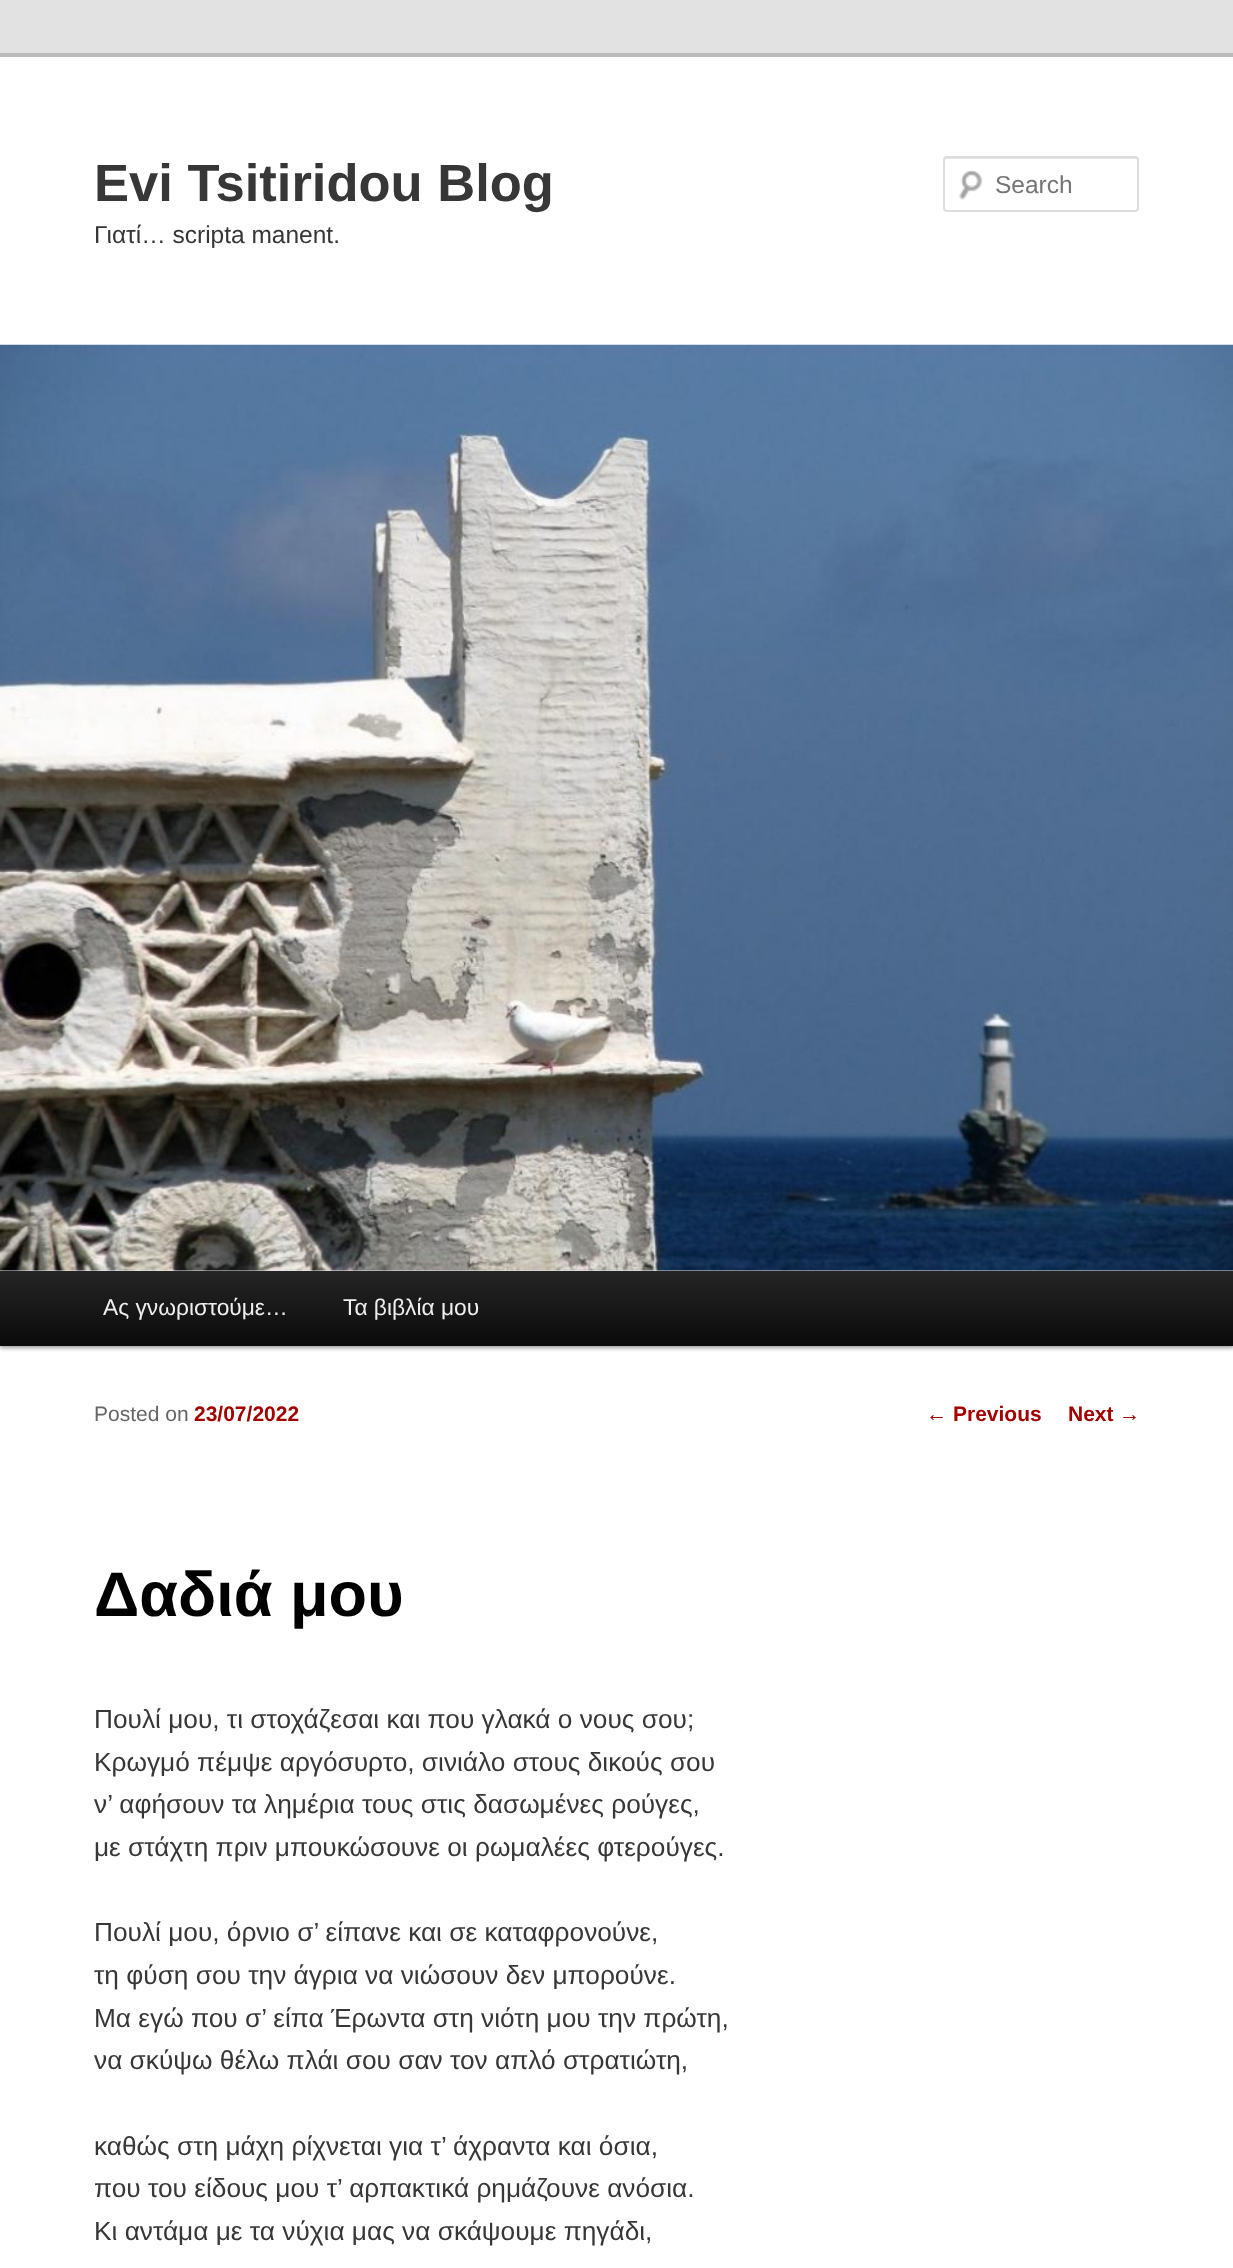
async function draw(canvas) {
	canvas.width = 1233;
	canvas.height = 2268;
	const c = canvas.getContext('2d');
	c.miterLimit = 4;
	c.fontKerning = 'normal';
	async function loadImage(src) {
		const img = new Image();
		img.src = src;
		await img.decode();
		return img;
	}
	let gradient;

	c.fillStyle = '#e2e2e2';
	c.fillRect(0, 0, 1233, 2268);
	c.fillStyle = '#fff';
	c.fillRect(0, 57, 1233, 2211);
	c.fillStyle = '#bbb';
	c.fillRect(0, 53, 1233, 4);
	c.font = 'bold 52.5px Liberation Sans';
	c.fillStyle = '#373737';
	c.fillText('Evi Tsitiridou Blog', 94, 201);
	c.font = '24.5px Liberation Sans';
	c.fillText('Γιατί… scripta manent.', 94, 243);
	c.drawImage(await loadImage('img1.png'), 958, 170, 25, 30);
	c.fillStyle = '#e6e6e6';
	c.beginPath();
	c.moveTo(947, 159);
	c.lineTo(1136, 159);
	c.lineTo(1138, 160);
	c.lineTo(1138, 161);
	c.lineTo(1138, 160);
	c.bezierCurveTo(1138, 159, 1137, 158, 1136, 158);
	c.lineTo(947, 158);
	c.bezierCurveTo(946, 158, 945, 159, 945, 160);
	c.lineTo(945, 161);
	c.bezierCurveTo(945, 160, 946, 159, 947, 159);
	c.closePath();
	c.fill();
	c.beginPath();
	c.roundRect(944, 157, 194, 54, 3);
	c.strokeStyle = '#ddd';
	c.lineWidth = 2;
	c.stroke();
	c.fillStyle = '#757575';
	c.fillText('Search', 995, 193);
	c.fillStyle = '#00000066';
	c.filter = 'blur(2px)';
	c.beginPath();
	c.rect(0, 1272, 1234, 76);
	c.fill();
	c.filter = 'none';
	c.drawImage(await loadImage('img2.png'), 0, 344, 1233, 927);
	gradient = c.createLinearGradient(617, 1271, 617, 1346);
	gradient.addColorStop(0, '#252525');
	gradient.addColorStop(1, '#0a0a0a');
	c.fillStyle = gradient;
	c.fillRect(0, 1271, 1233, 75);
	c.font = '22.75px Liberation Sans';
	c.fillStyle = '#eee';
	c.fillText('Ας γνωριστούμε…', 103, 1315);
	c.fillText('Τα βιβλία μου', 343, 1315);
	c.font = '21px Liberation Sans';
	c.fillStyle = '#666';
	c.fillText('Posted on', 94, 1421);
	c.font = 'bold 21px Liberation Sans';
	c.fillStyle = '#a30000';
	c.fillText('23/07/2022', 194, 1421);
	c.font = 'bold 63px Liberation Sans';
	c.fillStyle = '#000';
	c.fillText('Δαδιά μου', 94, 1616);
	c.font = '26.25px Liberation Sans';
	c.fillStyle = '#373737';
	for (const [text, x, y] of [
		['Πουλί μου, τι στοχάζεσαι και που γλακά ο νους σου;', 94, 1728],
		['Κρωγμό πέμψε αργόσυρτο, σινιάλο στους δικούς σου', 94, 1771],
		['ν’ αφήσουν τα λημέρια τους στις δασωμένες ρούγες,', 94, 1813],
		['με στάχτη πριν μπουκώσουνε οι ρωμαλέες φτερούγες.', 94, 1856],
		['Πουλί μου, όρνιο σ’ είπανε και σε καταφρονούνε,', 94, 1941],
		['τη φύση σου την άγρια να νιώσουν δεν μπορούνε.', 94, 1984],
		['Μα εγώ που σ’ είπα Έρωντα στη νιότη μου την πρώτη,', 94, 2027],
		['να σκύψω θέλω πλάι σου σαν τον απλό στρατιώτη,', 94, 2069],
		['καθώς στη μάχη ρίχνεται για τ’ άχραντα και όσια,', 94, 2155],
		['που του είδους μου τ’ αρπακτικά ρημάζουνε ανόσια.', 94, 2197],
		['Κι αντάμα με τα νύχια μας να σκάψουμε πηγάδι,', 94, 2240],
	]) {
		c.fillText(text, x, y);
	}
	c.font = '21px Liberation Sans';
	c.fillStyle = '#a30000';
	c.fillText('←', 926, 1421);
	c.font = 'bold 21px Liberation Sans';
	c.fillText('Previous', 953, 1421);
	c.fillText('Next', 1068, 1421);
	c.font = '21px Liberation Sans';
	c.fillText('→', 1119, 1421);
}

draw(document.querySelector('canvas'));
